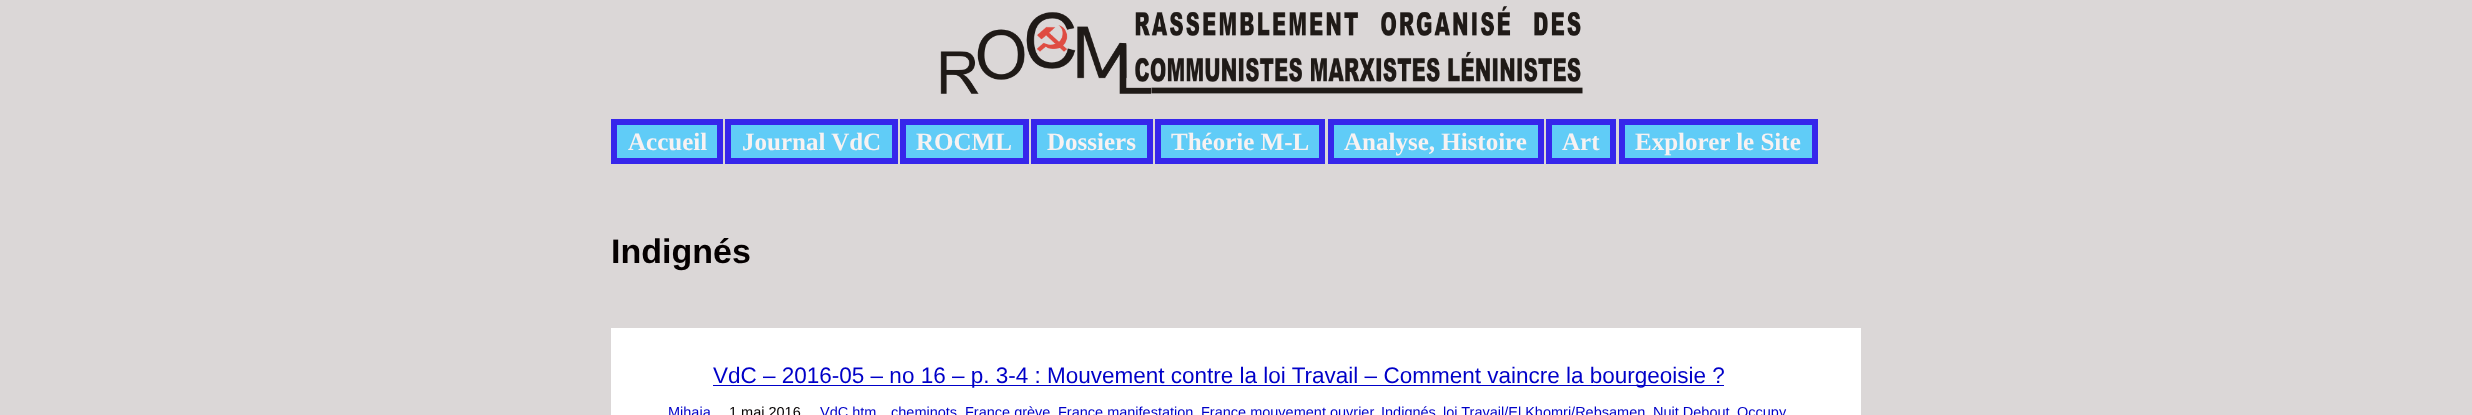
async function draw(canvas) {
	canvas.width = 2472;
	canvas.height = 415;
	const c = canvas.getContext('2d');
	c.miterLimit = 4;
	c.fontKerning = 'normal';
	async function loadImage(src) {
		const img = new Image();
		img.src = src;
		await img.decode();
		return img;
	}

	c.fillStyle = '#dbd7d7';
	c.fillRect(0, 0, 2472, 415);
	c.drawImage(await loadImage('img1.png'), 940, 6, 643, 88);
	c.fillStyle = '#60ccf7';
	c.beginPath();
	c.rect(614, 122, 106, 39);
	c.fill();
	c.strokeStyle = '#3626eb';
	c.lineWidth = 6;
	c.stroke();
	c.font = 'bold 25px Liberation Serif';
	c.fillStyle = '#f7f2f2';
	c.fillText('Accueil', 628, 150);
	c.fillStyle = '#60ccf7';
	c.beginPath();
	c.rect(728, 122, 167, 39);
	c.fill();
	c.stroke();
	c.fillStyle = '#f7f2f2';
	c.fillText('Journal VdC', 742, 150);
	c.fillStyle = '#60ccf7';
	c.beginPath();
	c.rect(903, 122, 123, 39);
	c.fill();
	c.stroke();
	c.fillStyle = '#f7f2f2';
	c.fillText('ROCML', 916, 150);
	c.fillStyle = '#60ccf7';
	c.beginPath();
	c.rect(1034, 122, 116, 39);
	c.fill();
	c.stroke();
	c.fillStyle = '#f7f2f2';
	c.fillText('Dossiers', 1047, 150);
	c.fillStyle = '#60ccf7';
	c.beginPath();
	c.rect(1158, 122, 164, 39);
	c.fill();
	c.stroke();
	c.fillStyle = '#f7f2f2';
	c.fillText('Théorie M-L', 1171, 150);
	c.fillStyle = '#60ccf7';
	c.beginPath();
	c.rect(1331, 122, 210, 39);
	c.fill();
	c.stroke();
	c.fillStyle = '#f7f2f2';
	c.fillText('Analyse, Histoire', 1344, 150);
	c.fillStyle = '#60ccf7';
	c.beginPath();
	c.rect(1549, 122, 64, 39);
	c.fill();
	c.stroke();
	c.fillStyle = '#f7f2f2';
	c.fillText('Art', 1562, 150);
	c.fillStyle = '#60ccf7';
	c.beginPath();
	c.rect(1622, 122, 193, 39);
	c.fill();
	c.stroke();
	c.fillStyle = '#f7f2f2';
	c.fillText('Explorer le Site', 1635, 150);
	c.font = 'bold 34px Liberation Sans';
	c.fillStyle = '#050000';
	c.fillText('Indignés', 611, 263);
	c.fillStyle = '#fff';
	c.fillRect(611, 328, 1250, 87);
	c.fillStyle = '#0000c8';
	c.fillRect(713, 385, 1011, 1);
	c.font = '22.5px Liberation Sans';
	c.fillText('VdC – 2016-05 – no 16 – p. 3-4 : Mouvement contre la loi Travail – Comment vaincre la bourgeoisie ?', 713, 383);
	c.font = '14.5px Liberation Sans';
	c.fillText('Mihaja', 668, 417);
	c.fillStyle = '#050000';
	c.fillText('1 mai 2016', 729, 417);
	c.fillStyle = '#0000c8';
	for (const [text, x, y] of [
		['VdC htm', 820, 417],
		['cheminots', 891, 417],
		['France grève', 965, 417],
		['France manifestation', 1058, 417],
		['France mouvement ouvrier', 1201, 417],
		['Indignés', 1381, 417],
		['loi Travail/El Khomri/Rebsamen', 1443, 417],
		['Nuit Debout', 1653, 417],
		['Occupy', 1737, 417],
	]) {
		c.fillText(text, x, y);
	}
}

draw(document.querySelector('canvas'));
